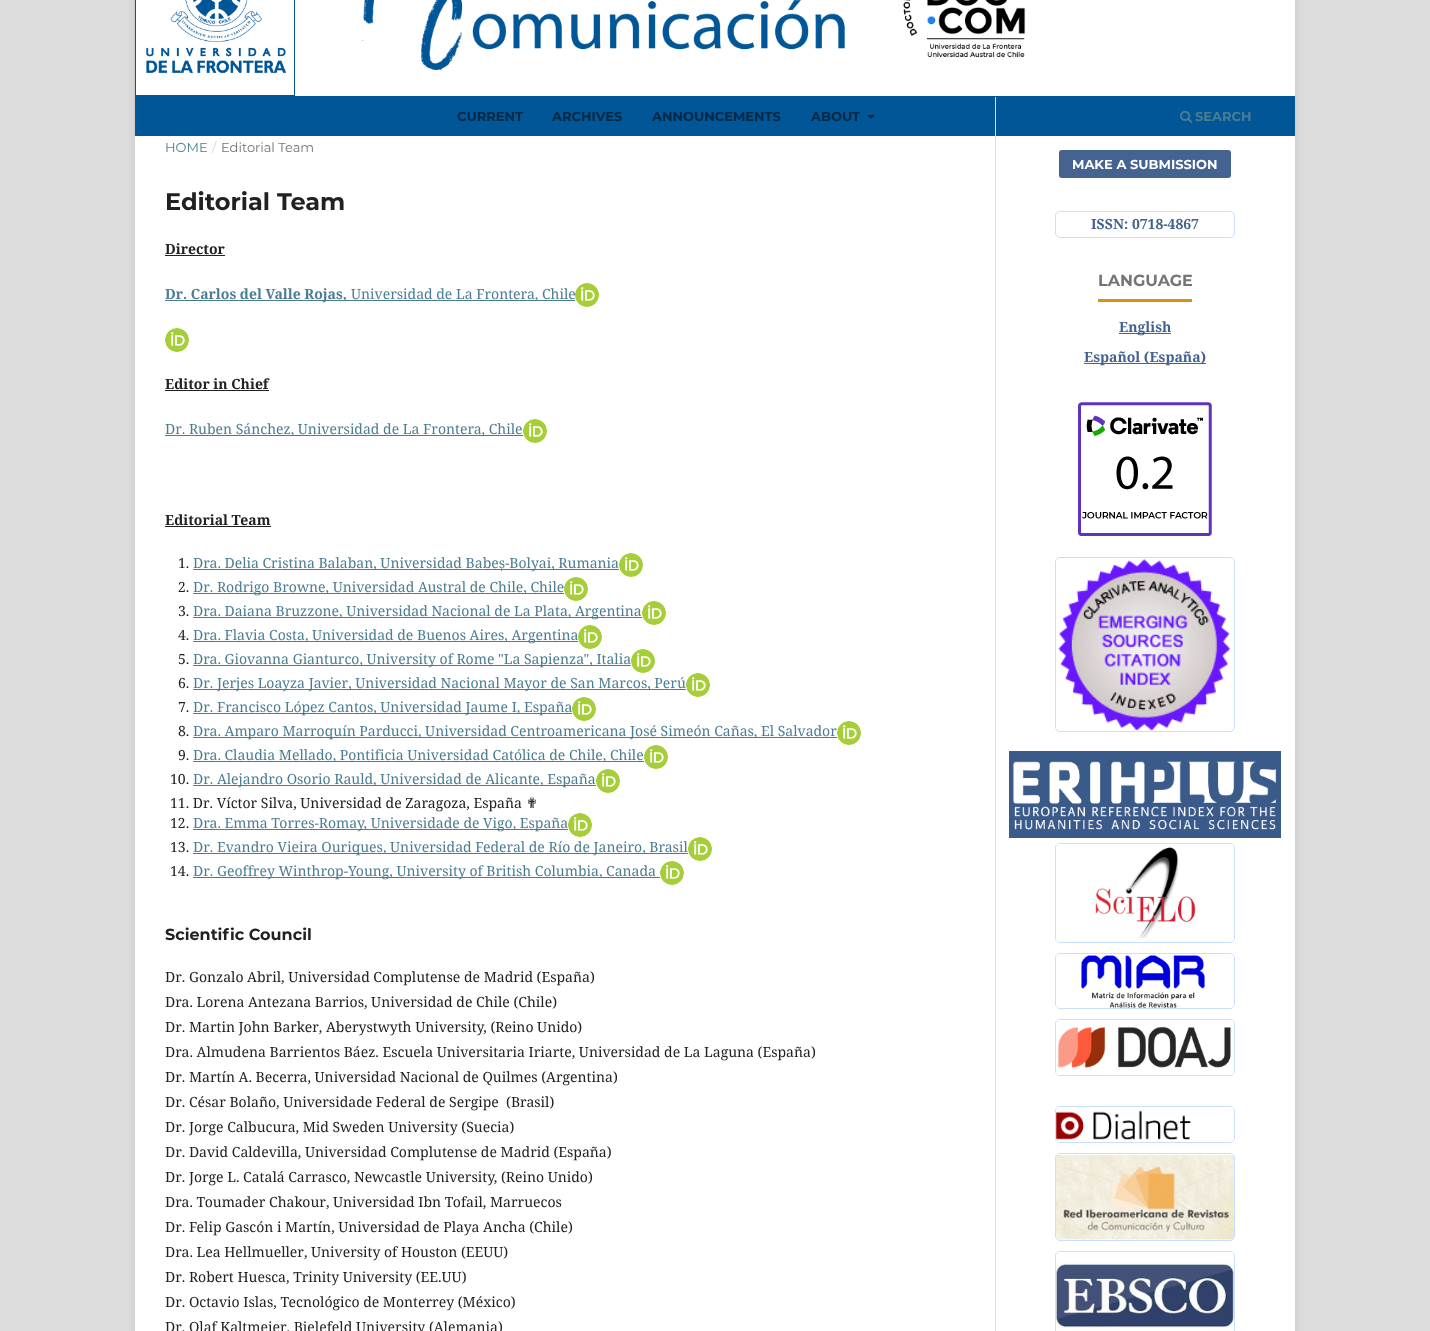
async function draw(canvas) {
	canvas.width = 1430;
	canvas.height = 1331;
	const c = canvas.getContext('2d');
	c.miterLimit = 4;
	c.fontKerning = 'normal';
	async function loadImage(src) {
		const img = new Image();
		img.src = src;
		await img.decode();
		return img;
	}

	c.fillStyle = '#ddd';
	c.fillRect(0, 0, 1430, 1331);
	c.fillStyle = '#0000001a';
	c.filter = 'blur(5px)';
	c.beginPath();
	c.rect(135, -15, 1160, 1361);
	c.fill();
	c.filter = 'none';
	c.fillStyle = '#fff';
	c.fillRect(135, 0, 1160, 1331);
	c.drawImage(await loadImage('img1.png'), 146, 0, 140, 74);
	c.strokeStyle = '#005696';
	c.strokeRect(135.5, -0.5, 159, 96);
	c.drawImage(await loadImage('img2.png'), 362, 0, 664, 70);
	c.fillStyle = '#005696';
	c.fillRect(135, 96, 1160, 40);
	c.font = 'bold 13px Montserrat';
	c.fillStyle = '#002845';
	for (const [text, x, y] of [
		['CURRENT', 457, 121],
		['ARCHIVES', 552, 121],
		['ANNOUNCEMENTS', 652, 121],
		['ABOUT', 811, 121],
	]) {
		c.fillText(text, x, y);
	}
	c.beginPath();
	c.moveTo(867, 115);
	c.lineTo(875, 115);
	c.lineTo(871, 119);
	c.closePath();
	c.fill();
	c.drawImage(await loadImage('img3.png'), 1180, 110, 12, 13);
	c.fillStyle = '#4b7d92';
	c.fillText('SEARCH', 1195, 121);
	c.font = '13px Montserrat';
	c.fillText('HOME', 165, 152);
	c.fillStyle = '#d6d6d6';
	c.fillText('/', 212, 152);
	c.fillStyle = '#757575';
	c.fillText('Editorial Team', 221, 152);
	c.font = 'bold 24px Montserrat';
	c.fillStyle = '#212121';
	c.fillText('Editorial Team', 165, 210);
	c.font = 'bold 14px Noto Serif';
	c.fillText('Director', 165, 254);
	c.fillRect(165, 255, 60, 1);
	c.fillStyle = '#4b7d92';
	c.fillRect(165, 300, 410, 1);
	c.fillText('Dr. Carlos del Valle Rojas,', 165, 299);
	c.font = '14px Noto Serif';
	c.fillText('Universidad de La Frontera, Chile', 351, 299);
	c.drawImage(await loadImage('img4.png'), 575, 283, 24, 24);
	c.drawImage(await loadImage('img5.png'), 165, 328, 24, 24);
	c.font = 'bold 14px Noto Serif';
	c.fillStyle = '#212121';
	c.fillText('Editor in Chief', 165, 389);
	c.fillRect(165, 390, 104, 1);
	c.fillStyle = '#4b7d92';
	c.fillRect(165, 435, 358, 1);
	c.font = '14px Noto Serif';
	c.fillText('Dr. Ruben Sánchez, Universidad de La Frontera, Chile', 165, 434);
	c.drawImage(await loadImage('img4.png'), 523, 419, 24, 24);
	c.font = 'bold 14px Noto Serif';
	c.fillStyle = '#212121';
	c.fillText('Editorial Team', 165, 525);
	c.fillRect(165, 526, 106, 1);
	c.font = '14px Noto Serif';
	c.fillText('1.', 178, 568);
	c.fillStyle = '#4b7d92';
	c.fillRect(193, 569, 426, 1);
	c.fillText('Dra. Delia Cristina Balaban, Universidad Babeș-Bolyai, Rumania', 193, 568);
	c.drawImage(await loadImage('img4.png'), 619, 553, 24, 24);
	c.fillStyle = '#212121';
	c.fillText('2.', 178, 592);
	c.fillStyle = '#4b7d92';
	c.fillRect(193, 593, 371, 1);
	c.fillText('Dr. Rodrigo Browne, Universidad Austral de Chile, Chile', 193, 592);
	c.drawImage(await loadImage('img4.png'), 564, 577, 24, 24);
	c.fillStyle = '#212121';
	c.fillText('3.', 178, 616);
	c.fillStyle = '#4b7d92';
	c.fillRect(193, 617, 449, 1);
	c.fillText('Dra. Daiana Bruzzone, Universidad Nacional de La Plata, Argentina', 193, 616);
	c.drawImage(await loadImage('img4.png'), 642, 601, 24, 24);
	c.fillStyle = '#212121';
	c.fillText('4.', 178, 640);
	c.fillStyle = '#4b7d92';
	c.fillRect(193, 641, 385, 1);
	c.fillText('Dra. Flavia Costa, Universidad de Buenos Aires, Argentina', 193, 640);
	c.drawImage(await loadImage('img6.png'), 578, 625, 24, 24);
	c.fillStyle = '#212121';
	c.fillText('5.', 178, 664);
	c.fillStyle = '#4b7d92';
	c.fillRect(193, 665, 438, 1);
	c.fillText('Dra. Giovanna Gianturco, University of Rome "La Sapienza", Italia', 193, 664);
	c.drawImage(await loadImage('img5.png'), 631, 649, 24, 24);
	c.fillStyle = '#212121';
	c.fillText('6.', 178, 688);
	c.fillStyle = '#4b7d92';
	c.fillRect(193, 689, 493, 1);
	c.fillText('Dr. Jerjes Loayza Javier, Universidad Nacional Mayor de San Marcos, Perú', 193, 688);
	c.drawImage(await loadImage('img4.png'), 686, 673, 24, 24);
	c.fillStyle = '#212121';
	c.fillText('7.', 178, 712);
	c.fillStyle = '#4b7d92';
	c.fillRect(193, 713, 379, 1);
	c.fillText('Dr. Francisco López Cantos, Universidad Jaume I, España', 193, 712);
	c.drawImage(await loadImage('img5.png'), 572, 697, 24, 24);
	c.fillStyle = '#212121';
	c.fillText('8.', 178, 736);
	c.fillStyle = '#4b7d92';
	c.fillRect(193, 737, 644, 1);
	c.fillText('Dra. Amparo Marroquín Parducci, Universidad Centroamericana José Simeón Cañas, El Salvador', 193, 736);
	c.drawImage(await loadImage('img4.png'), 837, 721, 24, 24);
	c.fillStyle = '#212121';
	c.fillText('9.', 178, 760);
	c.fillStyle = '#4b7d92';
	c.fillRect(193, 761, 451, 1);
	c.fillText('Dra. Claudia Mellado, Pontificia Universidad Católica de Chile, Chile', 193, 760);
	c.drawImage(await loadImage('img4.png'), 644, 745, 24, 24);
	c.fillStyle = '#212121';
	c.fillText('10.', 170, 784);
	c.fillStyle = '#4b7d92';
	c.fillRect(193, 785, 403, 1);
	c.fillText('Dr. Alejandro Osorio Rauld, Universidad de Alicante, España', 193, 784);
	c.drawImage(await loadImage('img4.png'), 596, 769, 24, 24);
	c.fillStyle = '#212121';
	c.fillText('11. Dr. Víctor Silva, Universidad de Zaragoza, España', 170, 808);
	c.font = '14px DejaVu Sans';
	c.fillText('✟', 526, 808);
	c.font = '14px Noto Serif';
	c.fillText('12.', 170, 828);
	c.fillStyle = '#4b7d92';
	c.fillRect(193, 829, 375, 1);
	c.fillText('Dra. Emma Torres-Romay, Universidade de Vigo, España', 193, 828);
	c.drawImage(await loadImage('img5.png'), 568, 813, 24, 24);
	c.fillStyle = '#212121';
	c.fillText('13.', 170, 852);
	c.fillStyle = '#4b7d92';
	c.fillRect(193, 853, 495, 1);
	c.fillText('Dr. Evandro Vieira Ouriques, Universidad Federal de Río de Janeiro, Brasil', 193, 852);
	c.drawImage(await loadImage('img4.png'), 688, 837, 24, 24);
	c.fillStyle = '#212121';
	c.fillText('14.', 170, 876);
	c.fillStyle = '#4b7d92';
	c.fillRect(193, 877, 467, 1);
	c.fillText('Dr. Geoffrey Winthrop-Young, University of British Columbia, Canada', 193, 876);
	c.drawImage(await loadImage('img5.png'), 660, 861, 24, 24);
	c.font = 'bold 16px Montserrat';
	c.fillStyle = '#212121';
	c.fillText('Scientific Council', 165, 940);
	c.font = '14px Noto Serif';
	for (const [text, x, y] of [
		['Dr. Gonzalo Abril, Universidad Complutense de Madrid (España)', 165, 982],
		['Dra. Lorena Antezana Barrios, Universidad de Chile (Chile)', 165, 1007],
		['Dr. Martin John Barker, Aberystwyth University, (Reino Unido)', 165, 1032],
		['Dra. Almudena Barrientos Báez. Escuela Universitaria Iriarte, Universidad de La Laguna (España)', 165, 1057],
		['Dr. Martín A. Becerra, Universidad Nacional de Quilmes (Argentina)', 165, 1082],
		['Dr. César Bolaño, Universidade Federal de Sergipe  (Brasil)', 165, 1107],
		['Dr. Jorge Calbucura, Mid Sweden University (Suecia)', 165, 1132],
		['Dr. David Caldevilla, Universidad Complutense de Madrid (España)', 165, 1157],
		['Dr. Jorge L. Catalá Carrasco, Newcastle University, (Reino Unido)', 165, 1182],
		['Dra. Toumader Chakour, Universidad Ibn Tofail, Marruecos', 165, 1207],
		['Dr. Felip Gascón i Martín, Universidad de Playa Ancha (Chile)', 165, 1232],
		['Dra. Lea Hellmueller, University of Houston (EEUU)', 165, 1257],
		['Dr. Robert Huesca, Trinity University (EE.UU)', 165, 1282],
		['Dr. Octavio Islas, Tecnológico de Monterrey (México)', 165, 1307],
		['Dr. Olaf Kaltmeier, Bielefeld University (Alemania)', 165, 1332],
	]) {
		c.fillText(text, x, y);
	}
	c.fillStyle = '#ddd';
	c.fillRect(995, 97, 1, 1234);
	c.fillStyle = '#446391';
	c.beginPath();
	c.roundRect(1059, 150, 172, 28, 3);
	c.fill();
	c.font = 'bold 13px Montserrat';
	c.fillStyle = '#fff';
	c.fillText('MAKE A SUBMISSION', 1072, 169);
	c.beginPath();
	c.roundRect(1055.5, 211.5, 179, 26, 4.5);
	c.strokeStyle = '#c9e0fc';
	c.stroke();
	c.font = 'bold 14px Noto Serif';
	c.fillStyle = '#42618e';
	c.fillText('ISSN: 0718-4867', 1091, 229);
	c.fillStyle = '#d79212';
	c.fillRect(1098, 299, 94, 3);
	c.font = 'bold 16px Montserrat';
	c.fillStyle = '#757575';
	c.fillText('LANGUAGE', 1098, 286);
	c.fillStyle = '#446391';
	c.fillRect(1119, 333, 52, 1);
	c.font = 'bold 14px Noto Serif';
	c.fillStyle = '#42618e';
	c.fillText('English', 1119, 332);
	c.fillStyle = '#446391';
	c.fillRect(1084, 363, 122, 1);
	c.fillStyle = '#42618e';
	c.fillText('Español (España)', 1084, 362);
	c.drawImage(await loadImage('img7.png'), 1078, 402, 134, 134);
	c.beginPath();
	c.roundRect(1055.5, 557.5, 179, 174, 4.5);
	c.stroke();
	c.drawImage(await loadImage('img8.png'), 1058, 559, 173, 172);
	c.drawImage(await loadImage('img9.png'), 1009, 751, 272, 87);
	c.beginPath();
	c.roundRect(1055.5, 843.5, 179, 99, 4.5);
	c.stroke();
	c.drawImage(await loadImage('img10.png'), 1056, 844, 178, 98);
	c.beginPath();
	c.roundRect(1055.5, 953.5, 179, 55, 4.5);
	c.stroke();
	c.drawImage(await loadImage('img11.png'), 1056, 954, 178, 54);
	c.beginPath();
	c.roundRect(1055.5, 1019.5, 179, 56, 4.5);
	c.stroke();
	c.drawImage(await loadImage('img12.png'), 1056, 1020, 178, 55);
	c.beginPath();
	c.roundRect(1055.5, 1106.5, 179, 36, 4.5);
	c.stroke();
	c.drawImage(await loadImage('img13.png'), 1056, 1107, 178, 35);
	c.beginPath();
	c.roundRect(1055.5, 1153.5, 179, 87, 4.5);
	c.stroke();
	c.drawImage(await loadImage('img14.png'), 1056, 1154, 178, 86);
	c.beginPath();
	c.roundRect(1055.5, 1251.5, 179, 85, 4.5);
	c.stroke();
	c.drawImage(await loadImage('img15.png'), 1056, 1252, 178, 79);
}

draw(document.querySelector('canvas'));
